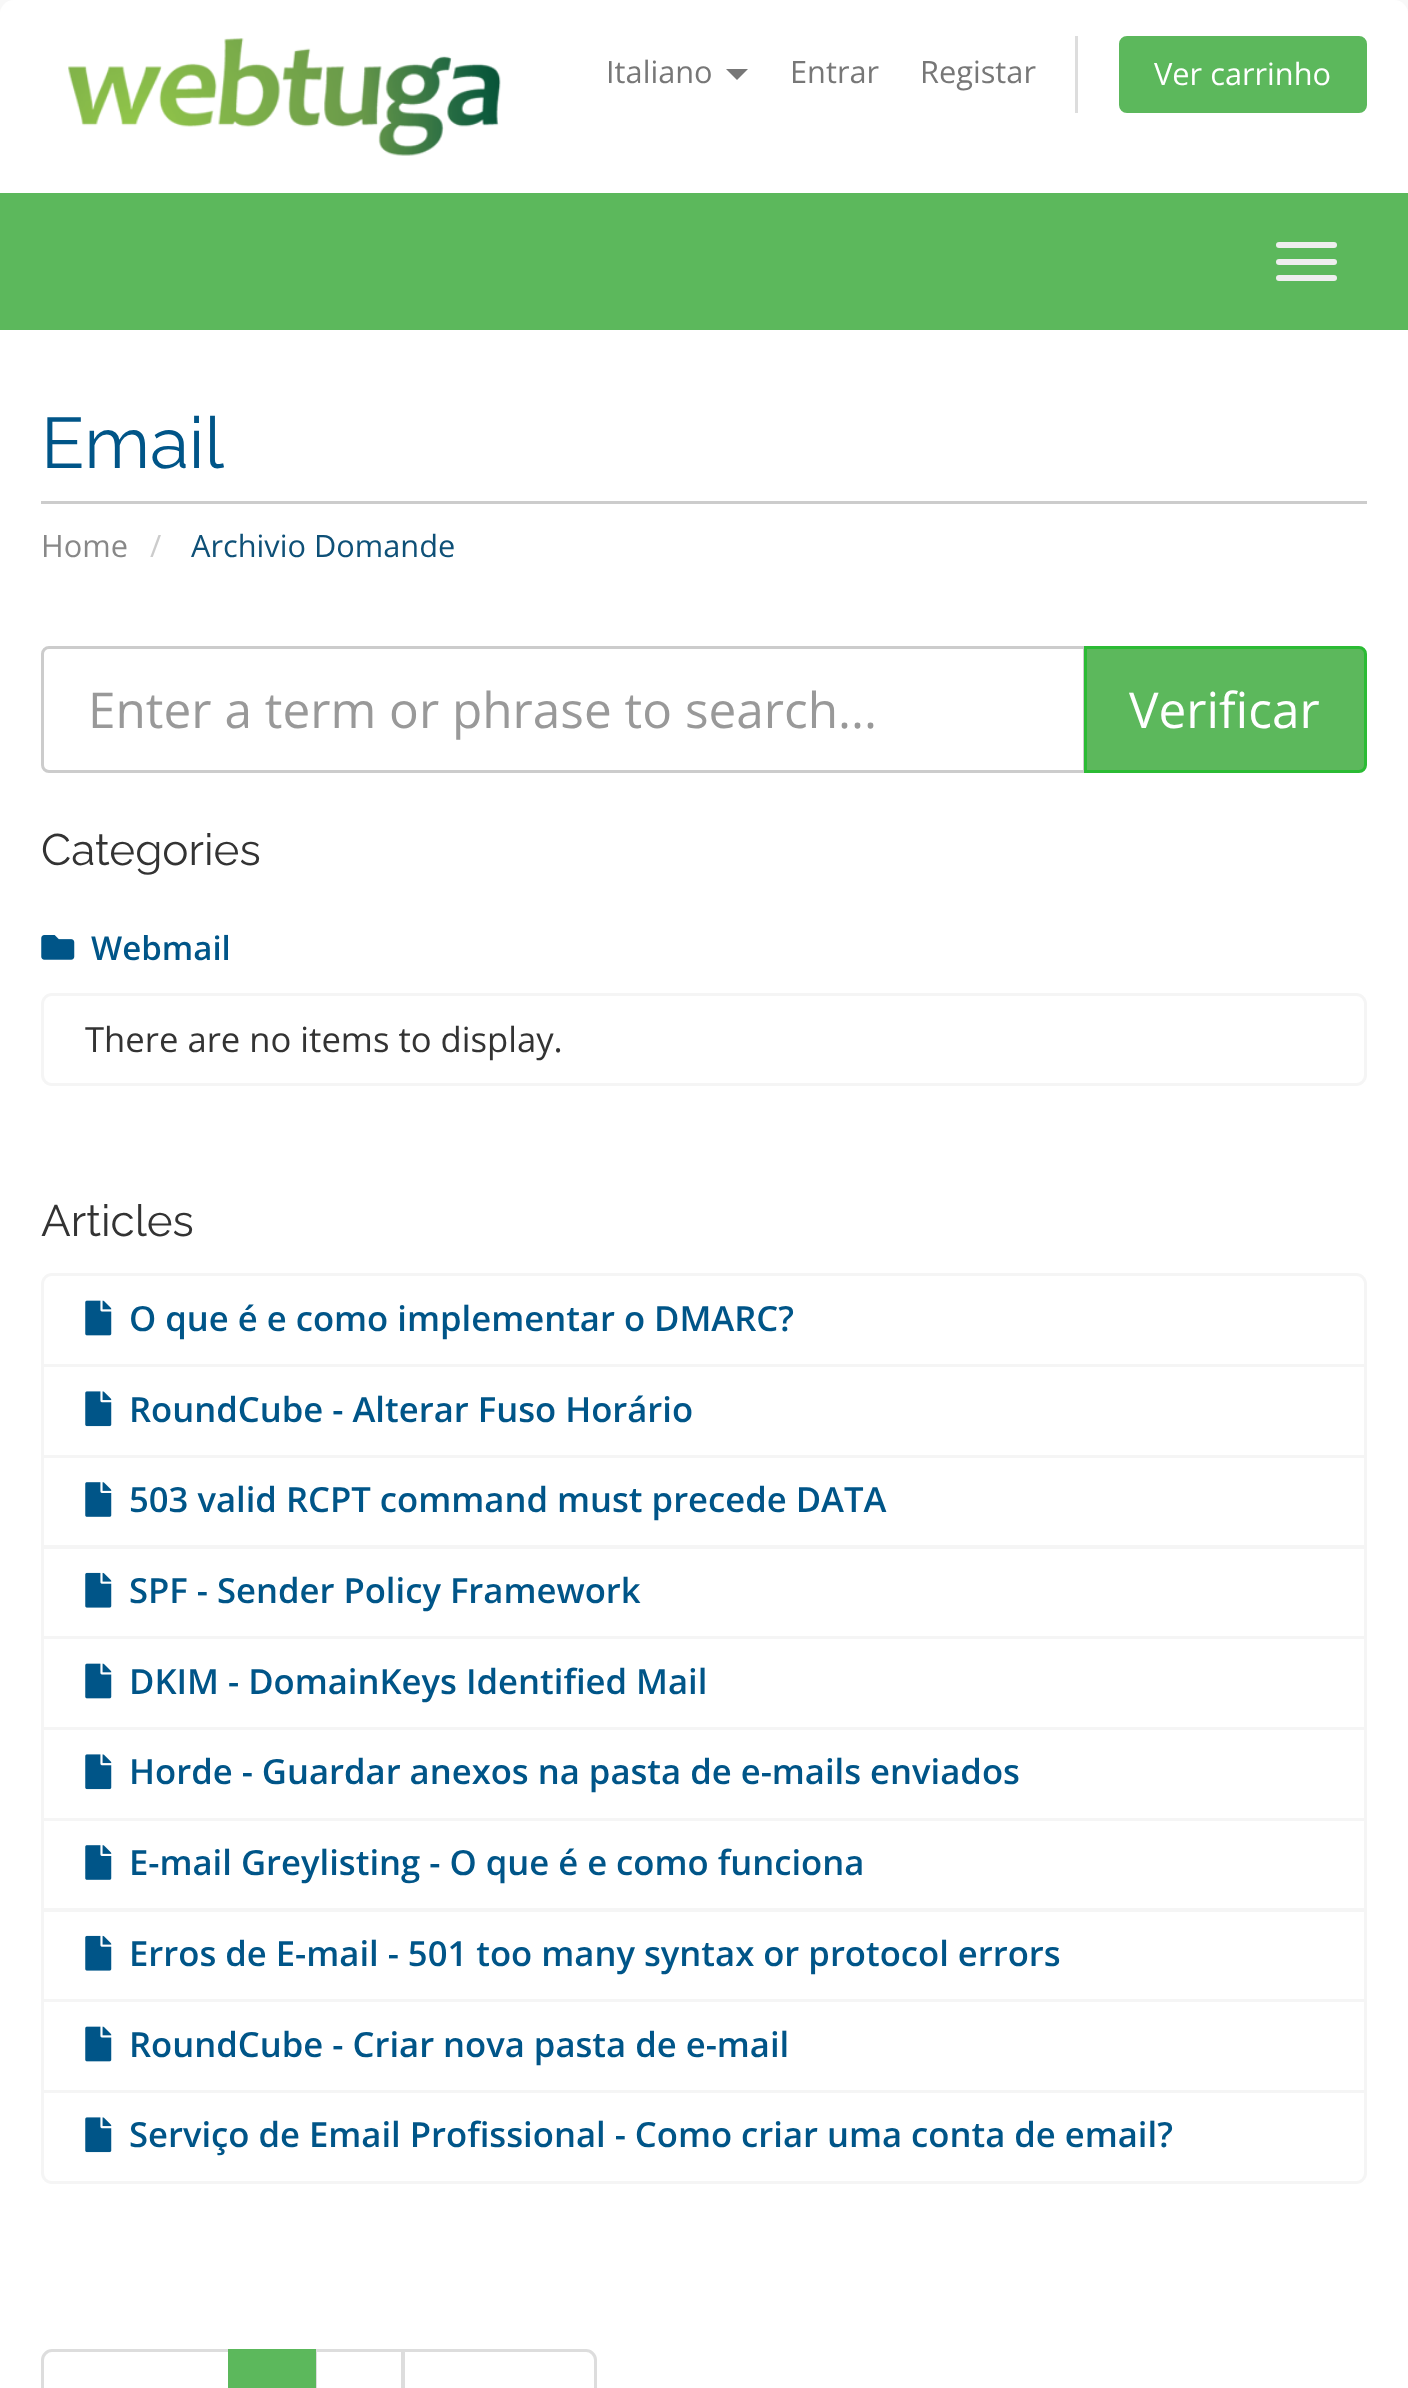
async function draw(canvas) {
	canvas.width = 1408;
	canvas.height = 2388;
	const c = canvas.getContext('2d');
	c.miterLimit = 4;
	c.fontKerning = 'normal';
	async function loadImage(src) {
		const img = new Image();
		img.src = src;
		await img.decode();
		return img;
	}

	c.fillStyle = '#f8f8f8';
	c.fillRect(0, 0, 1408, 2388);
	c.fillStyle = '#fff';
	c.beginPath();
	c.roundRect(0, 0, 1408, 193, [14, 14, 0, 0]);
	c.fill();
	c.drawImage(await loadImage('img1.png'), 68, 38, 433, 118);
	c.font = '30.75px Open Sans';
	c.fillStyle = '#777';
	c.fillText('Italiano', 606, 83);
	c.beginPath();
	c.moveTo(726, 69);
	c.lineTo(748, 69);
	c.lineTo(737, 80);
	c.closePath();
	c.fill();
	c.fillText('Entrar', 790, 83);
	c.fillText('Registar', 920, 83);
	c.fillStyle = '#ddd';
	c.fillRect(1075, 36, 3, 77);
	c.fillStyle = '#5cb85c';
	c.beginPath();
	c.roundRect(1120.5, 37.5, 245, 74, 6.5);
	c.fill();
	c.strokeStyle = '#5cb85c';
	c.lineWidth = 3;
	c.stroke();
	c.fillStyle = '#fff';
	c.fillText('Ver carrinho', 1154, 85);
	c.fillStyle = '#5cb85c';
	c.fillRect(0, 193, 1408, 137);
	c.fillStyle = '#eee';
	c.beginPath();
	c.roundRect(1276, 242, 61, 6, 3);
	c.fill();
	c.beginPath();
	c.roundRect(1276, 259, 61, 6, 3);
	c.fill();
	c.beginPath();
	c.roundRect(1276, 275, 61, 6, 3);
	c.fill();
	c.fillStyle = '#fff';
	c.fillRect(0, 330, 1408, 2058);
	c.fillStyle = '#ccc';
	c.fillRect(41, 501, 1326, 3);
	c.font = '71.5px Raleway';
	c.fillStyle = '#058';
	c.fillText('Email', 41, 468);
	c.font = '30.75px Open Sans';
	c.fillStyle = '#888';
	c.fillText('Home', 41, 557);
	c.fillStyle = '#ccc';
	c.fillText('/', 150, 557);
	c.fillStyle = '#0e5077';
	c.fillText('Archivio Domande', 191, 557);
	c.beginPath();
	c.roundRect(42.5, 647.5, 1042, 124, [6.5, 0, 0, 6.5]);
	c.strokeStyle = '#ccc';
	c.stroke();
	c.font = '49.5px Open Sans';
	c.fillStyle = '#999';
	c.fillText('Enter a term or phrase to search...', 88, 728);
	c.fillStyle = '#5cb85c';
	c.beginPath();
	c.roundRect(1085.5, 647.5, 280, 124, [0, 6.5, 6.5, 0]);
	c.fill();
	c.strokeStyle = '#2bbb34';
	c.stroke();
	c.fillStyle = '#fff';
	c.fillText('Verificar', 1129, 728);
	c.font = '44px Raleway';
	c.fillStyle = '#333';
	c.fillText('Categories', 41, 865);
	c.drawImage(await loadImage('img2.png'), 41, 935, 34, 25);
	c.font = '600 33px Open Sans';
	c.fillStyle = '#058';
	c.fillText('Webmail', 91, 960);
	c.beginPath();
	c.roundRect(42.5, 994.5, 1323, 90, 9.5);
	c.strokeStyle = '#f5f5f5';
	c.stroke();
	c.font = '34.65px Open Sans';
	c.fillStyle = '#333';
	c.fillText('There are no items to display.', 85, 1052);
	c.font = '44px Raleway';
	c.fillText('Articles', 41, 1236);
	c.beginPath();
	c.roundRect(42.5, 1274.5, 1323, 91, [9.5, 9.5, 0, 0]);
	c.stroke();
	c.drawImage(await loadImage('img3.png'), 85, 1300, 27, 36);
	c.font = '600 34.65px Open Sans';
	c.fillStyle = '#058';
	c.fillText('O que é e como implementar o DMARC?', 129, 1331);
	c.strokeRect(42.5, 1365.5, 1323, 91);
	c.drawImage(await loadImage('img4.png'), 85, 1391, 27, 36);
	c.fillText('RoundCube - Alterar Fuso Horário', 129, 1422);
	c.strokeRect(42.5, 1456.5, 1323, 90);
	c.drawImage(await loadImage('img5.png'), 85, 1482, 27, 35);
	c.fillText('503 valid RCPT command must precede DATA', 129, 1512);
	c.strokeRect(42.5, 1547.5, 1323, 90);
	c.drawImage(await loadImage('img6.png'), 85, 1572, 27, 36);
	c.fillText('SPF - Sender Policy Framework', 129, 1603);
	c.strokeRect(42.5, 1637.5, 1323, 91);
	c.drawImage(await loadImage('img3.png'), 85, 1663, 27, 36);
	c.fillText('DKIM - DomainKeys Identified Mail', 129, 1694);
	c.strokeRect(42.5, 1728.5, 1323, 91);
	c.drawImage(await loadImage('img4.png'), 85, 1754, 27, 36);
	c.fillText('Horde - Guardar anexos na pasta de e-mails enviados', 129, 1784);
	c.strokeRect(42.5, 1819.5, 1323, 90);
	c.drawImage(await loadImage('img5.png'), 85, 1845, 27, 35);
	c.fillText('E-mail Greylisting - O que é e como funciona', 129, 1875);
	c.strokeRect(42.5, 1910.5, 1323, 90);
	c.drawImage(await loadImage('img6.png'), 85, 1935, 27, 36);
	c.fillText('Erros de E-mail - 501 too many syntax or protocol errors', 129, 1966);
	c.strokeRect(42.5, 2000.5, 1323, 91);
	c.drawImage(await loadImage('img3.png'), 85, 2026, 27, 36);
	c.fillText('RoundCube - Criar nova pasta de e-mail', 129, 2057);
	c.fillStyle = '#fff';
	c.beginPath();
	c.roundRect(42.5, 2091.5, 1323, 91, [0, 0, 9.5, 9.5]);
	c.fill();
	c.stroke();
	c.drawImage(await loadImage('img4.png'), 85, 2117, 27, 36);
	c.fillStyle = '#058';
	c.fillText('Serviço de Email Profissional - Como criar uma conta de email?', 129, 2147);
	c.beginPath();
	c.moveTo(52, 2350.5);
	c.lineTo(229.5, 2350.5);
	c.lineTo(229.5, 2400.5);
	c.lineTo(52, 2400.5);
	c.bezierCurveTo(47, 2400.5, 42.5, 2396, 42.5, 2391);
	c.lineTo(42.5, 2360);
	c.bezierCurveTo(42.5, 2355, 47, 2350.5, 52, 2350.5);
	c.closePath();
	c.strokeStyle = '#ddd';
	c.stroke();
	c.strokeRect(315.5, 2350.5, 87, 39);
	c.fillStyle = '#5cb85c';
	c.fillRect(228, 2349, 88, 39);
	c.fillStyle = '#fff';
	c.beginPath();
	c.moveTo(403.5, 2350.5);
	c.lineTo(586, 2350.5);
	c.bezierCurveTo(591, 2350.5, 595.5, 2355, 595.5, 2360);
	c.lineTo(595.5, 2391);
	c.bezierCurveTo(595.5, 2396, 591, 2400.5, 586, 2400.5);
	c.lineTo(403.5, 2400.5);
	c.closePath();
	c.fill();
	c.stroke();
}

draw(document.querySelector('canvas'));
